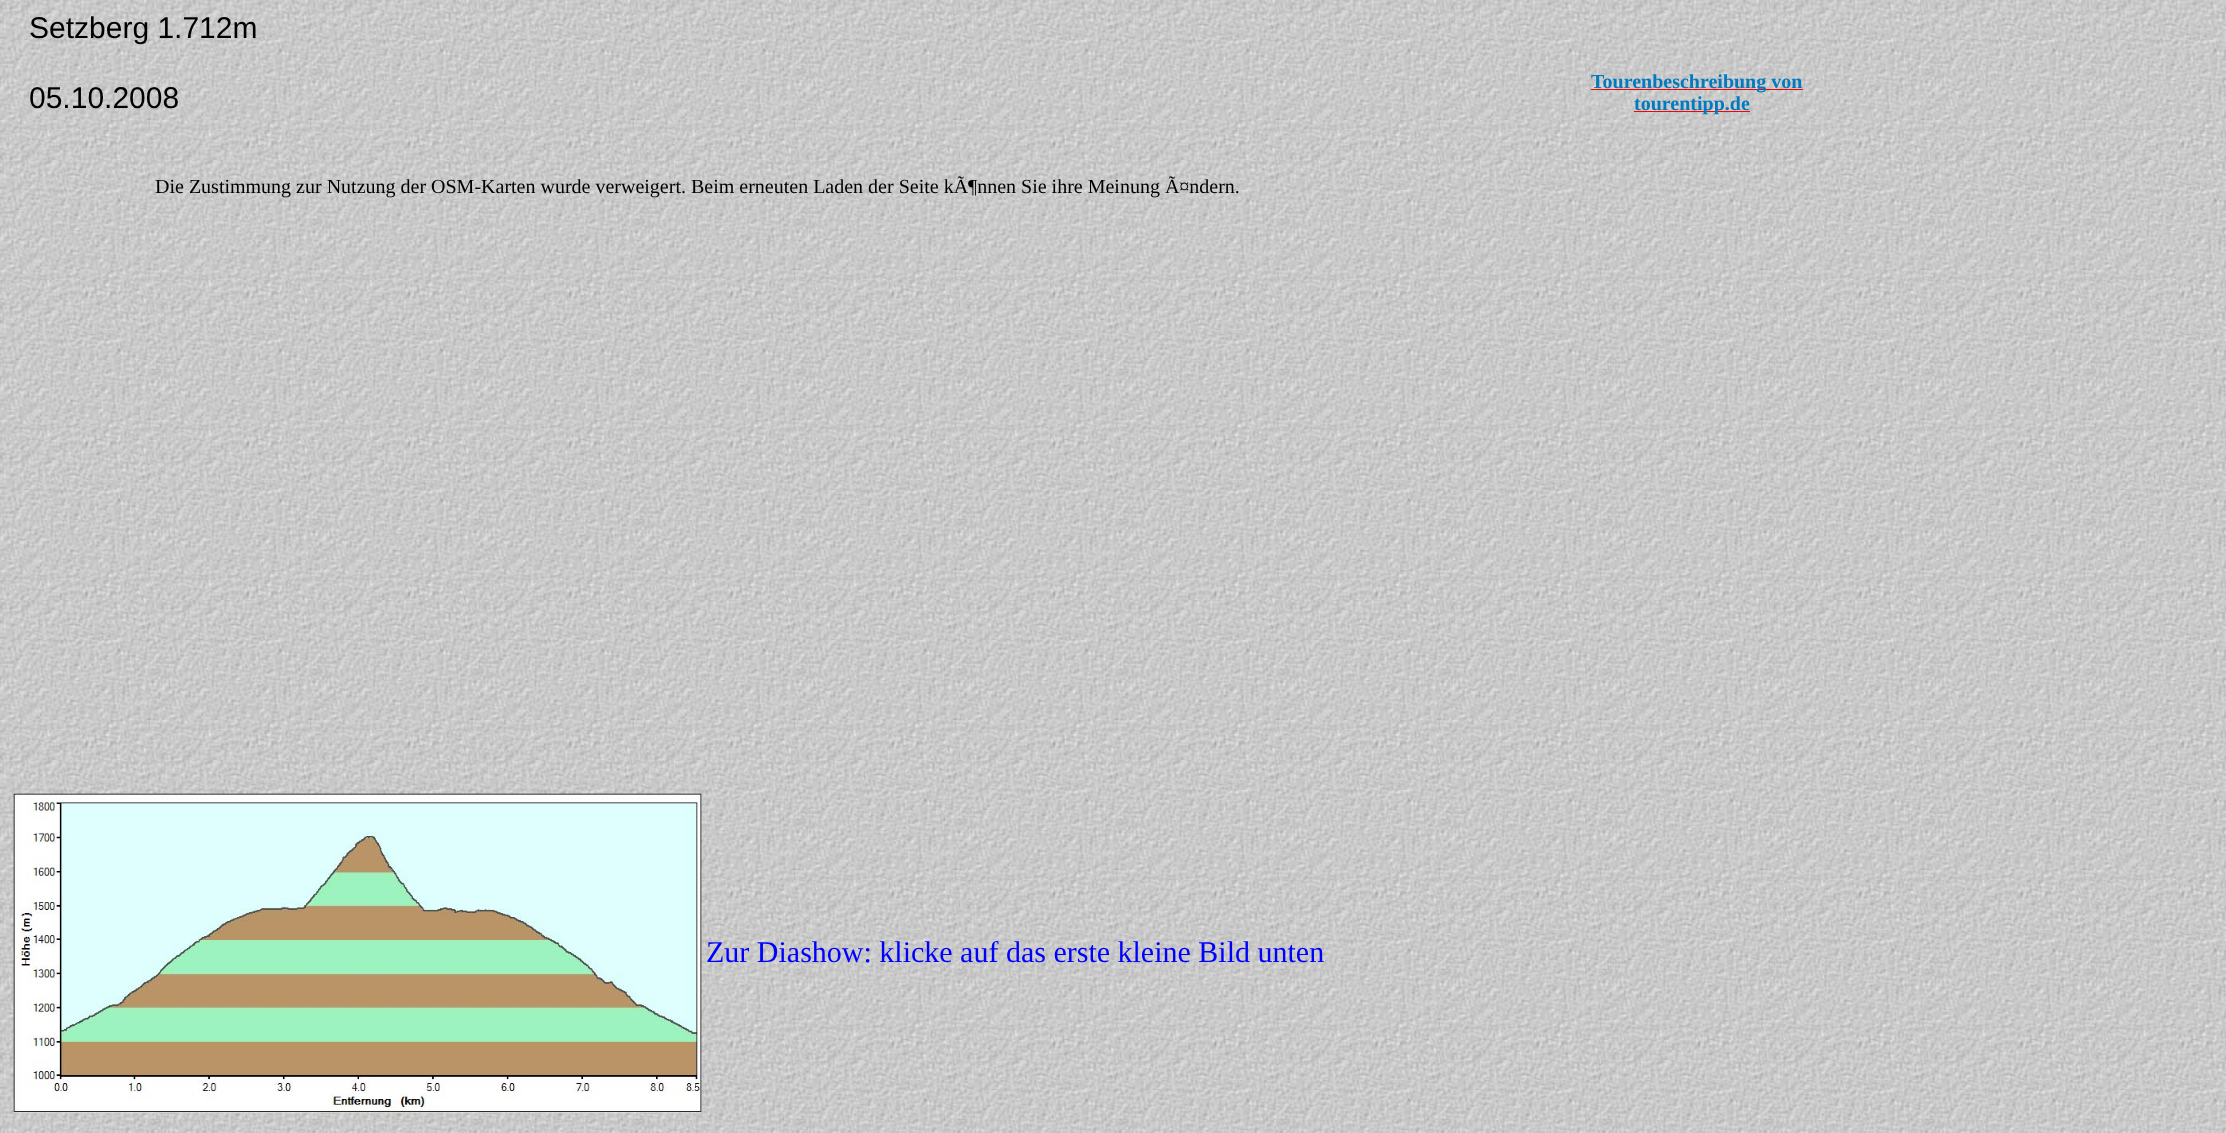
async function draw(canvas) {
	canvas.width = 2226;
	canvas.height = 1133;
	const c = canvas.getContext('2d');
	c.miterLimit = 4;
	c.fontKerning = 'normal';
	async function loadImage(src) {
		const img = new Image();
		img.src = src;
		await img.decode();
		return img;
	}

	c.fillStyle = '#fff';
	c.fillRect(0, 0, 2226, 1133);
	c.drawImage(await loadImage('img1.png'), 0, 0, 2226, 1133);
	c.font = '30px Liberation Sans';
	c.fillStyle = '#000';
	c.fillText('Setzberg 1.712m', 29, 38);
	c.fillText('05.10.2008', 29, 108);
	c.fillStyle = '#f00';
	c.fillRect(1591, 89, 212, 1);
	c.font = 'bold 20px Liberation Serif';
	c.fillStyle = '#017ac0';
	c.fillText('Tourenbeschreibung von', 1591, 88);
	c.fillStyle = '#f00';
	c.fillRect(1634, 111, 116, 1);
	c.fillStyle = '#017ac0';
	c.fillText('tourentipp.de', 1634, 110);
	c.font = '20px Liberation Serif';
	c.fillStyle = '#000';
	c.fillText('Die Zustimmung zur Nutzung der OSM-Karten wurde verweigert. Beim erneuten Laden der Seite kÃ¶nnen Sie ihre Meinung Ã¤ndern.', 155, 193);
	c.drawImage(await loadImage('img2.png'), 13, 793, 689, 320);
	c.font = '30px Liberation Serif';
	c.fillStyle = '#00f';
	c.fillText('Zur Diashow: klicke auf das erste kleine Bild unten', 706, 962);
}

draw(document.querySelector('canvas'));
